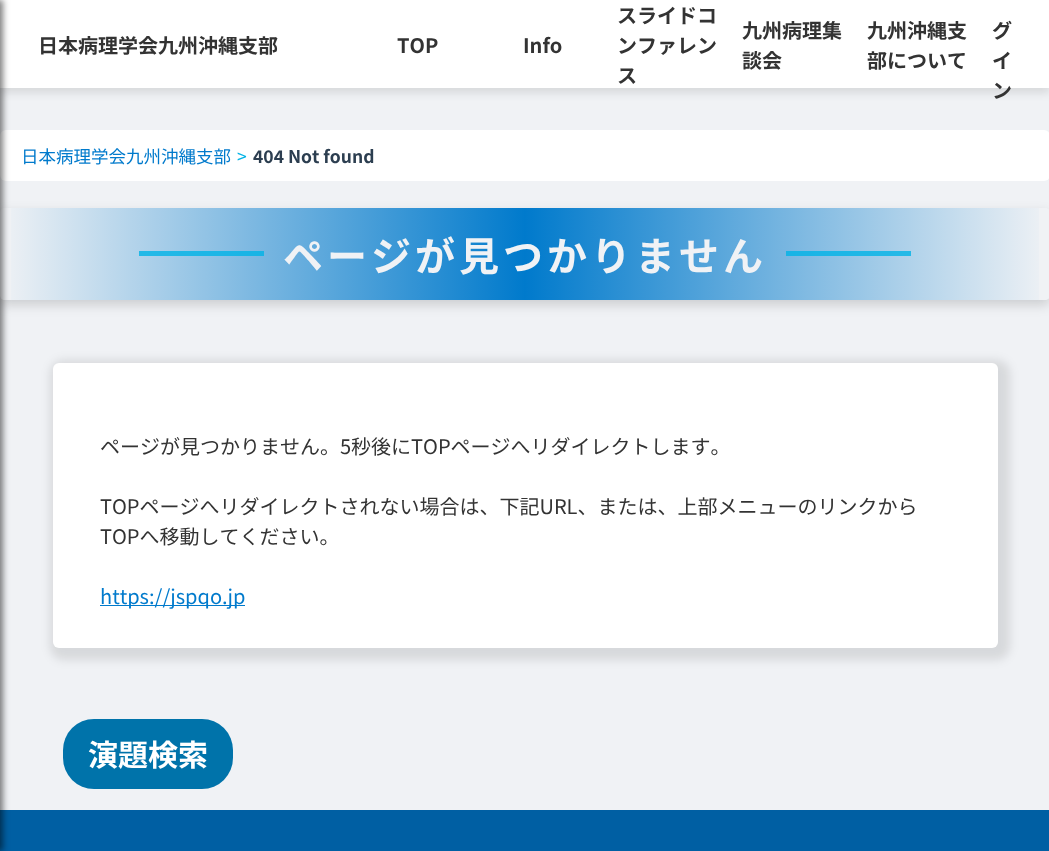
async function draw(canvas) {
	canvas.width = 1049;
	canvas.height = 851;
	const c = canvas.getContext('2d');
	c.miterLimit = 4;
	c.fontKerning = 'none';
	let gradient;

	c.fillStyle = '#f0f2f5';
	c.fillRect(0, 0, 1049, 851);
	c.fillStyle = '#0000001a';
	c.filter = 'blur(4px)';
	c.beginPath();
	c.rect(0, 5, 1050, 88);
	c.fill();
	c.filter = 'none';
	c.fillStyle = '#fff';
	c.fillRect(0, 0, 1049, 88);
	c.font = 'bold 20px Noto Sans JP';
	c.fillStyle = '#333';
	for (const [text, x, y] of [
		['日本病理学会九州沖縄支部', 38, 53],
		['TOP', 397, 53],
		['Info', 523, 53],
		['スライドコ', 617, 23],
		['ンファレン', 617, 53],
		['ス', 617, 83],
		['九州病理集', 742, 38],
		['談会', 742, 68],
		['九州沖縄支', 867, 38],
		['部について', 867, 68],
		['グ', 992, 38],
		['イ', 992, 68],
		['ン', 992, 98],
	]) {
		c.fillText(text, x, y);
	}
	c.fillStyle = '#fff';
	c.beginPath();
	c.roundRect(0, 130, 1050, 51, 6);
	c.fill();
	c.font = '17.5px Noto Sans JP';
	c.fillStyle = '#007acc';
	c.fillText('日本病理学会九州沖縄支部', 21, 163);
	c.fillStyle = '#00b3e6';
	c.fillText('>', 237, 163);
	c.font = 'bold 17.5px Noto Sans JP';
	c.fillStyle = '#2c3e50';
	c.fillText('404 Not found', 253, 163);
	c.save();
	c.beginPath();
	c.moveTo(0, 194);
	c.lineTo(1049, 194);
	c.lineTo(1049, 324);
	c.lineTo(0, 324);
	c.closePath();
	c.moveTo(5, 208);
	c.lineTo(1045, 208);
	c.bezierCurveTo(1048, 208, 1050, 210, 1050, 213);
	c.lineTo(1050, 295);
	c.bezierCurveTo(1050, 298, 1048, 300, 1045, 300);
	c.lineTo(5, 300);
	c.bezierCurveTo(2, 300, 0, 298, 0, 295);
	c.lineTo(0, 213);
	c.bezierCurveTo(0, 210, 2, 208, 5, 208);
	c.closePath();
	c.clip('evenodd');
	c.fillStyle = '#00000026';
	c.filter = 'blur(6px)';
	c.beginPath();
	c.roundRect(0, 213, 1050, 92, 5);
	c.fill();
	c.filter = 'none';
	c.restore();
	gradient = c.createLinearGradient(0, 254, 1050, 254);
	gradient.addColorStop(0, '#007acc00');
	gradient.addColorStop(0.5, '#007acc');
	gradient.addColorStop(1, '#007acc00');
	c.fillStyle = gradient;
	c.fillRect(11, 208, 1028, 92);
	c.fillStyle = '#00b3e6cc';
	c.fillRect(139, 251, 125, 5);
	c.letterSpacing = '4px';
	c.font = 'bold 40px Noto Sans JP';
	c.fillStyle = '#f0f2f5';
	c.fillText('ページが見つかりません', 283, 271);
	c.fillStyle = '#00b3e6cc';
	c.fillRect(786, 251, 125, 5);
	c.fillStyle = '#0000001a';
	c.filter = 'blur(5px)';
	c.beginPath();
	c.roundRect(50, 360, 960, 300, 14);
	c.fill();
	c.filter = 'none';
	c.fillStyle = '#fff';
	c.beginPath();
	c.roundRect(53, 363, 945, 285, 6);
	c.fill();
	c.letterSpacing = '0px';
	c.font = '20px Noto Sans JP';
	c.fillStyle = '#333';
	for (const [text, x, y] of [
		['ページが見つかりません。5秒後にTOPページへリダイレクトします。', 100, 454],
		['TOPページへリダイレクトされない場合は、下記URL、または、上部メニューのリンクから', 100, 514],
		['TOPへ移動してください。', 100, 544],
	]) {
		c.fillText(text, x, y);
	}
	c.fillStyle = '#007acc';
	c.fillRect(100, 605, 145, 1);
	c.fillText('https://jspqo.jp', 100, 604);
	c.fillStyle = '#005fa3';
	c.fillRect(0, 810, 1049, 41);
	c.fillStyle = '#00000080';
	c.filter = 'blur(3px)';
	c.beginPath();
	c.rect(-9, 0, 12, 851);
	c.fill();
	c.filter = 'none';
	c.fillStyle = '#0073aa';
	c.beginPath();
	c.roundRect(63, 719, 170, 70, 31);
	c.fill();
	c.font = 'bold 30px Noto Sans JP';
	c.fillStyle = '#fff';
	c.fillText('演題検索', 88, 766);
}

draw(document.querySelector('canvas'));
